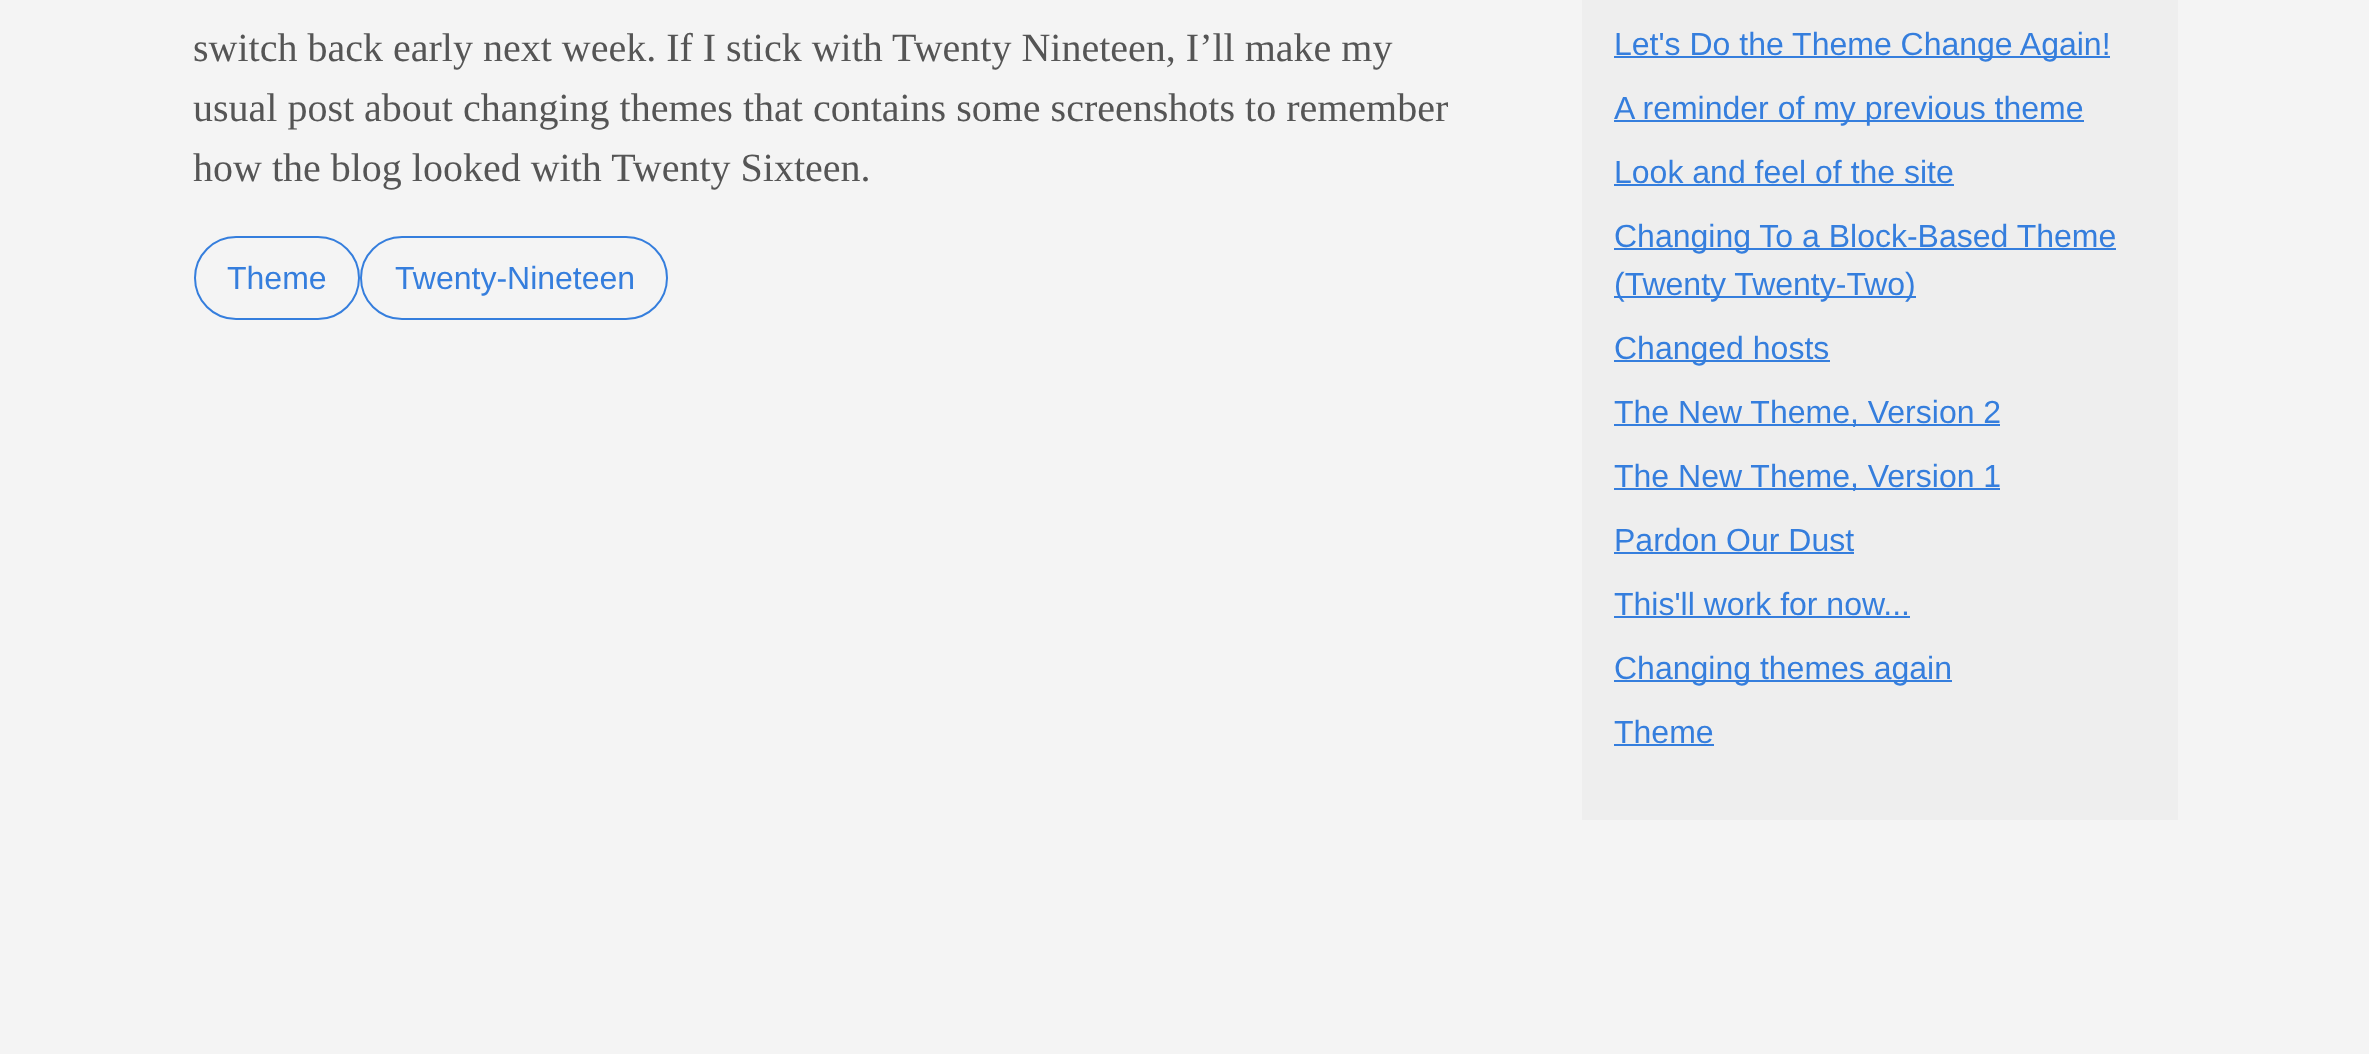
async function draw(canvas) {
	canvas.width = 2369;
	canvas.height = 1054;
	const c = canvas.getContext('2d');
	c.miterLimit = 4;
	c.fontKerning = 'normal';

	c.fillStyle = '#f4f4f4';
	c.fillRect(0, 0, 2369, 1054);
	c.font = '40px Liberation Serif';
	c.fillStyle = '#555';
	for (const [text, x, y] of [
		['switch back early next week. If I stick with Twenty Nineteen, I’ll make my', 193, 61],
		['usual post about changing themes that contains some screenshots to remember', 193, 121],
		['how the blog looked with Twenty Sixteen.', 193, 181],
	]) {
		c.fillText(text, x, y);
	}
	c.beginPath();
	c.roundRect(195, 237, 164, 82, 41);
	c.strokeStyle = '#357edd';
	c.lineWidth = 2;
	c.stroke();
	c.font = '32px Liberation Sans';
	c.fillStyle = '#357edd';
	c.fillText('Theme', 227, 289);
	c.beginPath();
	c.roundRect(361, 237, 306, 82, 41);
	c.stroke();
	c.fillText('Twenty-Nineteen', 395, 289);
	c.fillStyle = '#eee';
	c.fillRect(1582, 0, 596, 820);
	c.fillStyle = '#357edd';
	c.fillRect(1614, 56, 496, 2);
	c.fillText('Let\'s Do the Theme Change Again!', 1614, 55);
	c.fillRect(1614, 120, 470, 2);
	c.fillText('A reminder of my previous theme', 1614, 119);
	c.fillText('Look and feel of the site', 1614, 183);
	c.fillRect(1614, 184, 340, 2);
	c.fillRect(1614, 248, 502, 2);
	c.fillText('Changing To a Block-Based Theme', 1614, 247);
	c.fillRect(1614, 296, 302, 2);
	c.fillText('(Twenty Twenty-Two)', 1614, 295);
	c.fillRect(1614, 360, 216, 2);
	c.fillText('Changed hosts', 1614, 359);
	c.fillRect(1614, 424, 386, 2);
	c.fillText('The New Theme, Version 2', 1614, 423);
	c.fillRect(1614, 488, 386, 2);
	c.fillText('The New Theme, Version 1', 1614, 487);
	c.fillText('Pardon Our Dust', 1614, 551);
	c.fillRect(1614, 552, 240, 2);
	c.fillText('This\'ll work for now...', 1614, 615);
	c.fillRect(1614, 616, 296, 2);
	c.fillRect(1614, 680, 338, 2);
	c.fillText('Changing themes again', 1614, 679);
	c.fillText('Theme', 1614, 743);
	c.fillRect(1614, 744, 100, 2);
}

draw(document.querySelector('canvas'));
